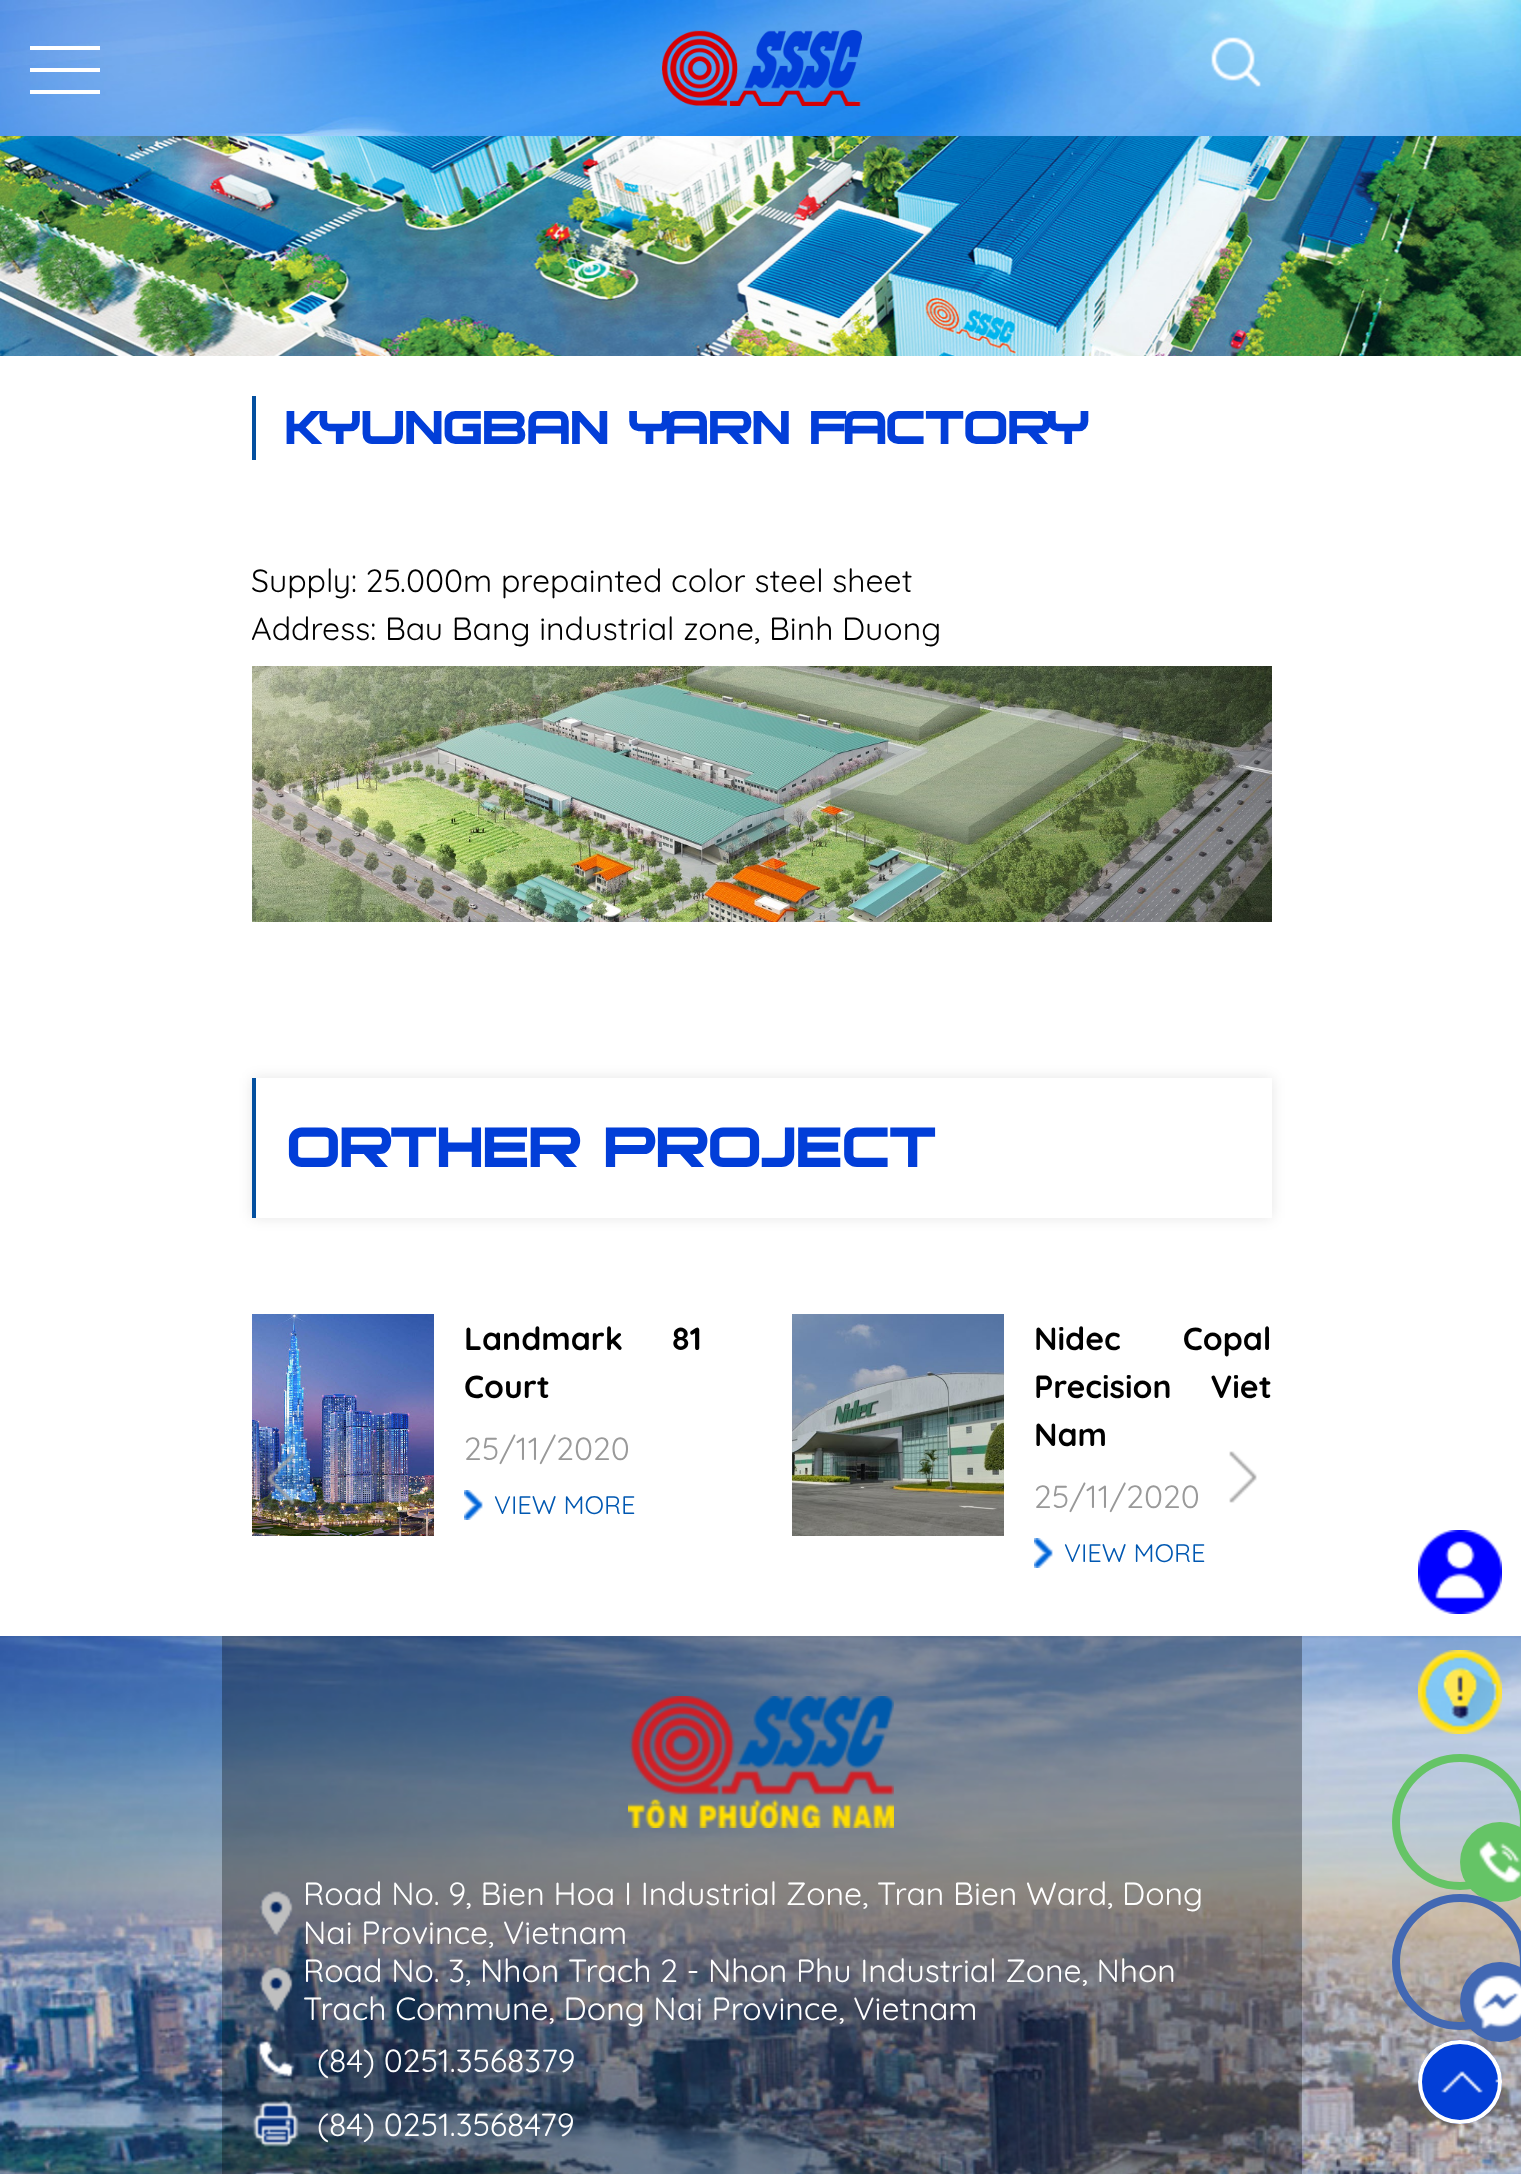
async function draw(canvas) {
	canvas.width = 1521;
	canvas.height = 2174;
	const c = canvas.getContext('2d');
	c.miterLimit = 4;
	c.fontKerning = 'normal';
	async function loadImage(src) {
		const img = new Image();
		img.src = src;
		await img.decode();
		return img;
	}

	c.fillStyle = '#fff';
	c.fillRect(0, 0, 1521, 2174);
	c.drawImage(await loadImage('img1.png'), 0, 0, 1521, 136);
	for (const [x, y, w, h, color] of [
		[30, 46, 70, 4, '#fff'],
		[30, 90, 70, 4, '#fff'],
		[30, 68, 70, 4, '#fff'],
	]) {
		c.fillStyle = color;
		c.fillRect(x, y, w, h);
	}
	c.drawImage(await loadImage('img2.png'), 662, 30, 200, 76);
	c.drawImage(await loadImage('img3.png'), 1211, 37, 50, 50);
	c.drawImage(await loadImage('img4.png'), 0, 136, 1521, 220);
	c.fillStyle = '#034f9f';
	c.fillRect(252, 396, 4, 64);
	c.font = '64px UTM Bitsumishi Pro';
	c.fillStyle = '#023ed8';
	c.fillText('KYUNGBAN YARN FACTORY', 285, 444);
	c.font = '32px Quicksand';
	c.fillStyle = '#000';
	c.fillText('Supply: 25.000m prepainted color steel sheet', 251, 592);
	c.fillText('Address: Bau Bang industrial zone, Binh Duong', 251, 640);
	c.drawImage(await loadImage('img5.png'), 252, 666, 1020, 256);
	c.save();
	c.beginPath();
	c.moveTo(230, 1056);
	c.lineTo(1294, 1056);
	c.lineTo(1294, 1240);
	c.lineTo(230, 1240);
	c.closePath();
	c.moveTo(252, 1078);
	c.lineTo(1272, 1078);
	c.lineTo(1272, 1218);
	c.lineTo(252, 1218);
	c.closePath();
	c.clip('evenodd');
	c.fillStyle = '#0000001a';
	c.filter = 'blur(7px)';
	c.beginPath();
	c.rect(252, 1078, 1020, 140);
	c.fill();
	c.filter = 'none';
	c.restore();
	c.fillStyle = '#034f9f';
	c.fillRect(252, 1078, 4, 140);
	c.font = '76.75px UTM Bitsumishi Pro';
	c.fillStyle = '#023ed8';
	c.fillText('ORTHER PROJECT', 287, 1167);
	c.drawImage(await loadImage('img6.png'), 252, 1314, 182, 222);
	c.wordSpacing = '40px';
	c.font = 'bold 32px Quicksand';
	c.fillStyle = '#000';
	c.fillText('Landmark 81', 464, 1350);
	c.wordSpacing = '0px';
	c.fillText('Court', 464, 1398);
	c.font = '32px Quicksand';
	c.fillStyle = '#999';
	c.fillText('25/11/2020', 464, 1460);
	c.drawImage(await loadImage('img7.png'), 464, 1490, 19, 30);
	c.font = '25.5px Quicksand';
	c.fillStyle = '#0158b2';
	c.fillText('VIEW MORE', 494, 1514);
	c.drawImage(await loadImage('img8.png'), 792, 1314, 212, 222);
	c.wordSpacing = '53px';
	c.font = 'bold 32px Quicksand';
	c.fillStyle = '#000';
	c.fillText('Nidec Copal', 1034, 1350);
	c.wordSpacing = '30px';
	c.fillText('Precision Viet', 1034, 1398);
	c.wordSpacing = '0px';
	c.fillText('Nam', 1034, 1446);
	c.font = '32px Quicksand';
	c.fillStyle = '#999';
	c.fillText('25/11/2020', 1034, 1508);
	c.drawImage(await loadImage('img7.png'), 1034, 1538, 19, 30);
	c.font = '25.5px Quicksand';
	c.fillStyle = '#0158b2';
	c.fillText('VIEW MORE', 1064, 1562);
	c.drawImage(await loadImage('img9.png'), 267, 1453, 28, 52);
	c.drawImage(await loadImage('img10.png'), 1229, 1451, 28, 52);
	c.drawImage(await loadImage('img11.png'), 1418, 1530, 84, 84);
	c.drawImage(await loadImage('img14.png'), 0, 1636, 1521, 538);
	c.drawImage(await loadImage('img12.png'), 1418, 1650, 84, 84);
	c.beginPath();
	c.arc(1460, 1822, 64, 0, 2 * Math.PI);
	c.strokeStyle = '#65c466';
	c.lineWidth = 8;
	c.stroke();
	c.fillStyle = '#65c466';
	c.beginPath();
	c.arc(1500, 1862, 40, 0, 2 * Math.PI);
	c.fill();
	c.drawImage(await loadImage('img13.png'), 1479, 1841, 42, 42);
	c.fillStyle = '#0000004d';
	c.fillRect(222, 1636, 1080, 538);
	c.drawImage(await loadImage('img15.png'), 628, 1696, 266, 132);
	c.drawImage(await loadImage('img16.png'), 259, 1891, 34, 45);
	c.font = '32px Quicksand';
	c.fillStyle = '#fff';
	c.fillText('Road No. 9, Bien Hoa I Industrial Zone, Tran Bien Ward, Dong', 303, 1905);
	c.fillText('Nai Province, Vietnam', 303, 1944);
	c.drawImage(await loadImage('img17.png'), 259, 1967, 34, 46);
	c.fillText('Road No. 3, Nhon Trach 2 - Nhon Phu Industrial Zone, Nhon', 303, 1982);
	c.fillText('Trach Commune, Dong Nai Province, Vietnam', 303, 2020);
	c.drawImage(await loadImage('img18.png'), 257, 2040, 38, 37);
	c.fillText('(84) 0251.3568379', 317, 2072);
	c.drawImage(await loadImage('img19.png'), 253, 2101, 46, 46);
	c.fillText('(84) 0251.3568479', 317, 2136);
	c.drawImage(await loadImage('img20.png'), 253, 2171, 42, 3);
	c.beginPath();
	c.arc(1460, 1962, 64, 0, 2 * Math.PI);
	c.strokeStyle = '#4268b3';
	c.stroke();
	c.fillStyle = '#023ed7';
	c.beginPath();
	c.arc(1460, 2082, 42, 0, 2 * Math.PI);
	c.fill();
	c.drawImage(await loadImage('img22.png'), 1441, 2071, 61, 22);
	c.beginPath();
	c.arc(1460, 2082, 40, 0, 2 * Math.PI);
	c.strokeStyle = '#fff';
	c.lineWidth = 4;
	c.stroke();
	c.fillStyle = '#4268b3';
	c.beginPath();
	c.arc(1500, 2002, 40, 0, 2 * Math.PI);
	c.fill();
	c.drawImage(await loadImage('img21.png'), 1473, 1975, 48, 54);
}

draw(document.querySelector('canvas'));
